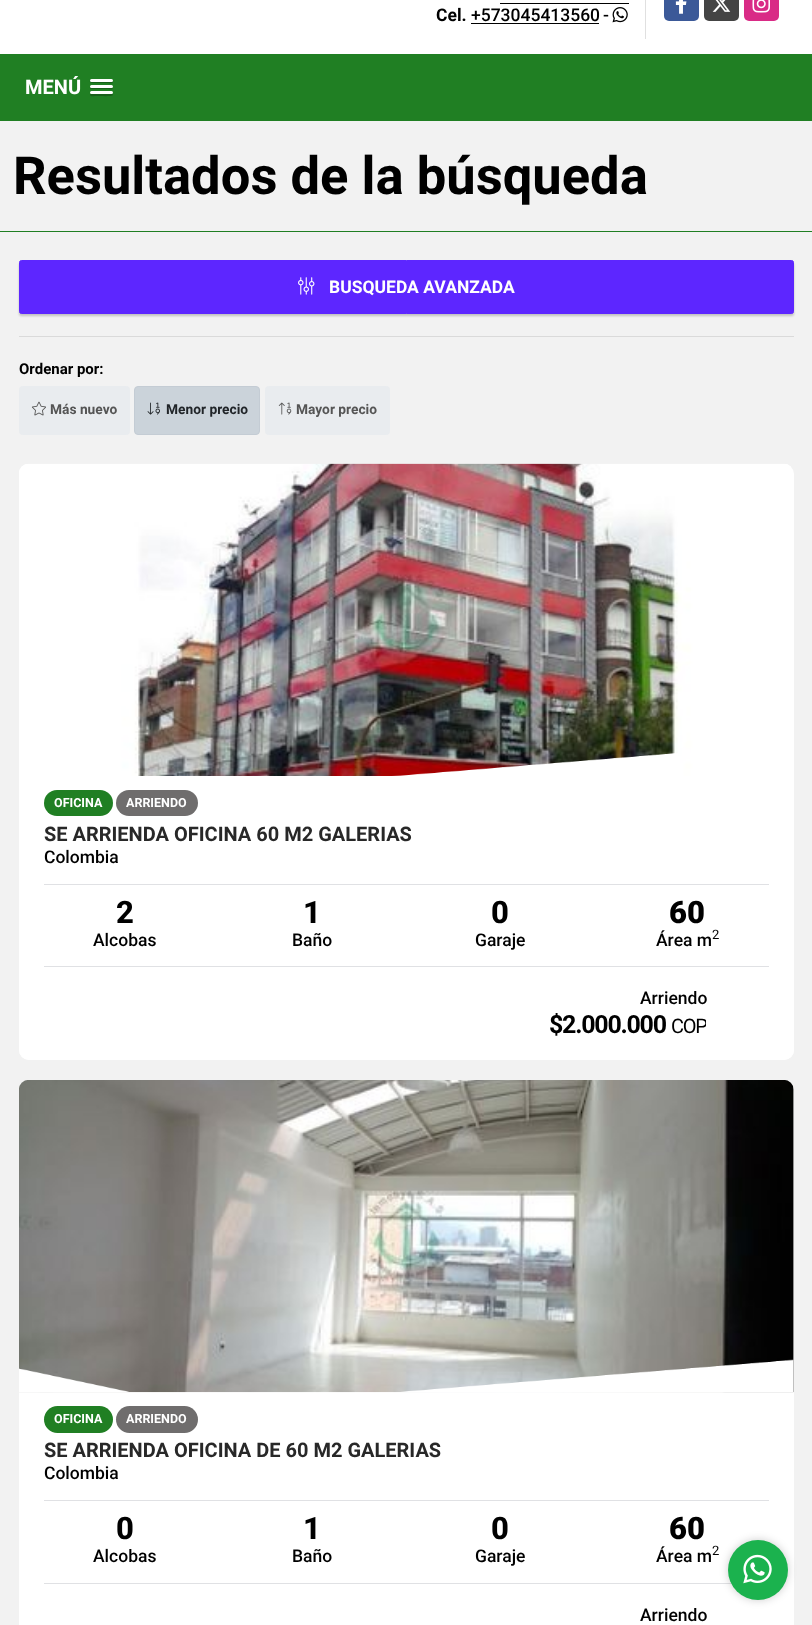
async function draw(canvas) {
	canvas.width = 812;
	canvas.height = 1625;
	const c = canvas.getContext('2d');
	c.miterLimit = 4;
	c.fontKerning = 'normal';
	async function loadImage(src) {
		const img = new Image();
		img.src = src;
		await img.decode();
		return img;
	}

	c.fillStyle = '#f2f2f2';
	c.fillRect(0, 0, 812, 1625);
	c.fillStyle = '#fff';
	c.fillRect(0, 0, 812, 54);
	c.fillStyle = '#000';
	c.fillRect(500, 3, 129, 1);
	c.font = 'bold 17.5px Roboto';
	c.fillText('Cel.', 436, 21);
	c.font = '500 17.5px Roboto';
	c.fillText('+573045413560', 471, 21);
	c.fillRect(471, 23, 128, 1);
	c.fillText('-', 603, 21);
	c.drawImage(await loadImage('img1.png'), 612, 7, 16, 16);
	c.fillStyle = '#e0e0e0';
	c.fillRect(645, 0, 1, 39);
	c.fillStyle = '#3b5998';
	c.beginPath();
	c.roundRect(664, -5, 35, 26, 5);
	c.fill();
	c.drawImage(await loadImage('img2.png'), 675, 0, 12, 14);
	c.fillStyle = '#444';
	c.beginPath();
	c.roundRect(704, -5, 35, 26, 5);
	c.fill();
	c.drawImage(await loadImage('img3.png'), 712, 0, 19, 12);
	c.fillStyle = '#d92b86';
	c.beginPath();
	c.roundRect(744, -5, 35, 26, 5);
	c.fill();
	c.drawImage(await loadImage('img4.png'), 752, 0, 18, 13);
	c.fillStyle = '#207f23';
	c.fillRect(0, 54, 812, 67);
	c.font = 'bold 20px Roboto';
	c.fillStyle = '#fff';
	c.fillText('MENÚ', 25, 94);
	c.fillStyle = '#185f1a';
	c.beginPath();
	c.moveTo(90, 80.5);
	c.bezierCurveTo(88.5, 83.5, 94.5, 83, 95, 83);
	c.lineTo(108, 83);
	c.bezierCurveTo(109, 83, 112.5, 84, 113, 82);
	c.bezierCurveTo(113, 81.5, 113, 80.5, 112.5, 80.5);
	c.lineTo(111.5, 81);
	c.lineTo(91, 81);
	c.closePath();
	c.fill();
	c.fillStyle = '#fff';
	c.beginPath();
	c.roundRect(90, 79, 23, 3, 1.5);
	c.fill();
	c.fillStyle = '#185f1a';
	c.beginPath();
	c.moveTo(90, 87);
	c.bezierCurveTo(89, 89.5, 94, 89, 95, 89);
	c.lineTo(108, 89);
	c.bezierCurveTo(109, 89, 112.5, 90, 113, 88);
	c.bezierCurveTo(113, 87.5, 113, 86.5, 112.5, 86.5);
	c.bezierCurveTo(112.5, 87, 112, 87.5, 111, 87.5);
	c.lineTo(91, 87.5);
	c.bezierCurveTo(91, 87.5, 90.5, 87, 90, 87);
	c.closePath();
	c.fill();
	c.fillStyle = '#fff';
	c.beginPath();
	c.roundRect(90, 85, 23, 3, 1.5);
	c.fill();
	c.fillStyle = '#185f1a';
	c.beginPath();
	c.moveTo(90.5, 93.5);
	c.lineTo(90, 95);
	c.bezierCurveTo(90.5, 97, 94, 96, 95, 96);
	c.lineTo(98, 96);
	c.bezierCurveTo(100, 96, 111.5, 96.5, 112.5, 95.5);
	c.bezierCurveTo(113, 95, 113, 94, 112.5, 93);
	c.lineTo(111.5, 93.5);
	c.bezierCurveTo(109.5, 94, 91, 94, 90.5, 93.5);
	c.closePath();
	c.fill();
	c.fillStyle = '#fff';
	c.beginPath();
	c.roundRect(90, 91, 23, 3, 1.5);
	c.fill();
	c.fillStyle = '#207f23';
	c.fillRect(0, 231, 812, 1);
	c.font = 'bold 52.5px Roboto';
	c.fillStyle = '#000';
	c.fillText('Resultados de la búsqueda', 13, 194);
	c.fillStyle = '#00000033';
	c.filter = 'blur(1px)';
	c.beginPath();
	c.roundRect(19, 263, 775, 53, 2.5);
	c.fill();
	c.filter = 'none';
	c.fillStyle = '#5d26ff';
	c.beginPath();
	c.roundRect(19.5, 260.5, 774, 53, 2);
	c.fill();
	c.strokeStyle = '#5d26ff';
	c.stroke();
	c.drawImage(await loadImage('img5.png'), 298, 277, 17, 18);
	c.font = 'bold 17.5px Roboto';
	c.fillStyle = '#fff';
	c.fillText('BUSQUEDA AVANZADA', 329, 293);
	c.fillStyle = '#dadada';
	c.fillRect(19, 336, 775, 1);
	c.font = 'bold 15px Roboto';
	c.fillStyle = '#000';
	c.fillText('Ordenar por:', 19, 374);
	c.fillStyle = '#e9ecef';
	c.beginPath();
	c.roundRect(19, 386, 111, 49, 4);
	c.fill();
	c.drawImage(await loadImage('img6.png'), 31, 401, 15, 15);
	c.font = 'bold 13.75px Roboto';
	c.fillStyle = '#555';
	c.fillText('Más nuevo', 50, 414);
	c.fillStyle = '#cbd3da';
	c.beginPath();
	c.roundRect(134.5, 386.5, 125, 48, 3.5);
	c.fill();
	c.strokeStyle = '#c4ccd4';
	c.stroke();
	c.drawImage(await loadImage('img7.png'), 147, 402, 13, 13);
	c.fillStyle = '#212529';
	c.fillText('Menor precio', 166, 414);
	c.fillStyle = '#e9ecef';
	c.beginPath();
	c.roundRect(265, 386, 125, 49, 4);
	c.fill();
	c.drawImage(await loadImage('img8.png'), 278, 402, 14, 13);
	c.fillStyle = '#555';
	c.fillText('Mayor precio', 296, 414);
	c.fillStyle = '#fff';
	c.beginPath();
	c.roundRect(19, 464, 775, 596, 10);
	c.fill();
	c.drawImage(await loadImage('img9.png'), 19, 463, 772, 313);
	c.drawImage(await loadImage('img10.png'), 392, 753, 286, 23);
	c.beginPath();
	c.roundRect(19, 776, 775, 284, [0, 0, 10, 10]);
	c.fill();
	c.fillStyle = '#207f23';
	c.beginPath();
	c.roundRect(44, 790, 69, 26, 13);
	c.fill();
	c.font = 'bold 12.5px Roboto';
	c.fillStyle = '#fff';
	c.fillText('OFICINA', 54, 807);
	c.fillStyle = '#6f6d6d';
	c.beginPath();
	c.roundRect(116, 790, 82, 26, 13);
	c.fill();
	c.fillStyle = '#fff';
	c.fillText('ARRIENDO', 126, 807);
	c.font = 'bold 20px Roboto';
	c.fillStyle = '#282828';
	c.fillText('SE ARRIENDA OFICINA 60 M2 GALERIAS', 44, 841);
	c.font = '500 17.5px Roboto';
	c.fillStyle = '#000';
	c.fillText('Colombia', 44, 863);
	c.fillStyle = '#e0e1e4';
	c.fillRect(44, 884, 725, 1);
	c.fillRect(44, 966, 725, 1);
	c.font = '800 31px Roboto';
	c.fillStyle = '#000';
	c.fillText('2', 116, 923);
	c.font = '500 17.5px Roboto';
	c.fillText('Alcobas', 93, 946);
	c.font = '800 31px Roboto';
	c.fillText('1', 303, 923);
	c.font = '500 17.5px Roboto';
	c.fillText('Baño', 292, 946);
	c.font = '800 31px Roboto';
	c.fillText('0', 491, 923);
	c.font = '500 17.5px Roboto';
	c.fillText('Garaje', 475, 946);
	c.font = '900 31px Roboto';
	c.fillText('60', 669, 923);
	c.font = '500 17.5px Roboto';
	c.fillText('Área m', 656, 946);
	c.font = '13px Roboto';
	c.fillText('2', 712, 939);
	c.font = '500 17.5px Roboto';
	c.fillText('Arriendo', 640, 1004);
	c.save();
	c.beginPath();
	c.rect(169, 1013, 537, 27);
	c.clip();
	c.letterSpacing = '-1.25px';
	c.font = 'bold 25px Roboto';
	c.fillText('$2.000.000', 549, 1033);
	c.font = '20px Roboto';
	c.fillText('COP', 671, 1033);
	c.restore();
	c.fillStyle = '#fff';
	c.beginPath();
	c.roundRect(19, 1080, 775, 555, 10);
	c.fill();
	c.drawImage(await loadImage('img11.png'), 19, 1080, 775, 313);
	c.drawImage(await loadImage('img12.png'), 19, 1359, 775, 33);
	c.fillStyle = '#207f23';
	c.beginPath();
	c.roundRect(44, 1406, 69, 27, 13.5);
	c.fill();
	c.font = 'bold 12.5px Roboto';
	c.fillStyle = '#fff';
	c.fillText('OFICINA', 54, 1423);
	c.fillStyle = '#6f6d6d';
	c.beginPath();
	c.roundRect(116, 1406, 82, 27, 13.5);
	c.fill();
	c.fillStyle = '#fff';
	c.fillText('ARRIENDO', 126, 1423);
	c.font = 'bold 20px Roboto';
	c.fillStyle = '#282828';
	c.fillText('SE ARRIENDA OFICINA DE 60 M2 GALERIAS', 44, 1457);
	c.font = '500 17.5px Roboto';
	c.fillStyle = '#000';
	c.fillText('Colombia', 44, 1479);
	c.fillStyle = '#e0e1e4';
	c.fillRect(44, 1500, 725, 1);
	c.fillRect(44, 1583, 688, 1);
	c.font = '800 31px Roboto';
	c.fillStyle = '#000';
	c.fillText('0', 116, 1539);
	c.font = '500 17.5px Roboto';
	c.fillText('Alcobas', 93, 1562);
	c.font = '800 31px Roboto';
	c.fillText('1', 303, 1539);
	c.font = '500 17.5px Roboto';
	c.fillText('Baño', 292, 1562);
	c.font = '800 31px Roboto';
	c.fillText('0', 491, 1539);
	c.font = '500 17.5px Roboto';
	c.fillText('Garaje', 475, 1562);
	c.font = '900 31px Roboto';
	c.fillText('60', 669, 1539);
	c.font = '500 17.5px Roboto';
	c.fillText('Área m', 656, 1562);
	c.font = '13px Roboto';
	c.fillText('2', 712, 1555);
	c.font = '500 17.5px Roboto';
	c.fillText('Arriendo', 640, 1621);
	c.fillStyle = '#00000033';
	c.filter = 'blur(4px)';
	c.beginPath();
	c.roundRect(728, 1540, 60, 60, 30);
	c.fill();
	c.filter = 'none';
	c.fillStyle = '#1bb24e';
	c.beginPath();
	c.arc(758, 1570, 30, 0, 2 * Math.PI);
	c.fill();
	c.drawImage(await loadImage('img13.png'), 743, 1554, 29, 30);
}

draw(document.querySelector('canvas'));
